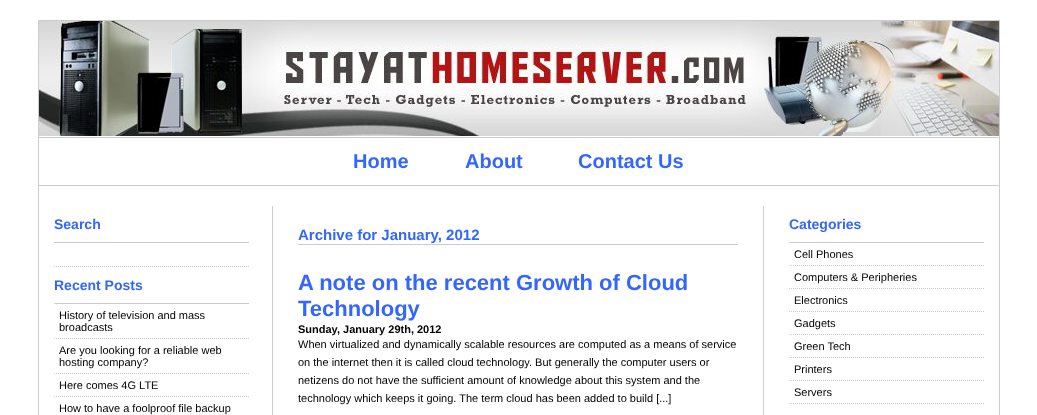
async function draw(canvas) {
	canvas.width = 1037;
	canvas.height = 415;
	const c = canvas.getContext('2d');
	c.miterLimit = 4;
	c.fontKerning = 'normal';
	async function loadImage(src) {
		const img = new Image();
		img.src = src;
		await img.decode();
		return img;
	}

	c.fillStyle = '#fff';
	c.fillRect(0, 0, 1037, 415);
	c.strokeStyle = '#ccc';
	c.strokeRect(38.5, 20.5, 961, 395);
	c.drawImage(await loadImage('img1.png'), 39, 21, 960, 115);
	c.fillStyle = '#ccc';
	c.fillRect(39, 137, 960, 1);
	c.fillRect(39, 185, 960, 1);
	c.font = 'bold 20px Liberation Sans';
	c.fillStyle = '#36f';
	for (const [text, x, y] of [
		['Home', 353, 168],
		['About', 465, 168],
		['Contact Us', 578, 168],
	]) {
		c.fillText(text, x, y);
	}
	c.beginPath();
	c.moveTo(54, 266.5);
	c.lineTo(249, 266.5);
	c.setLineDash([1, 1]);
	c.stroke();
	c.fillStyle = '#ccc';
	c.fillRect(54, 242, 195, 1);
	c.font = 'bold 14px Liberation Sans';
	c.fillStyle = '#36f';
	c.fillText('Search', 54, 229);
	c.fillStyle = '#ccc';
	c.fillRect(54, 303, 195, 1);
	c.fillStyle = '#36f';
	c.fillText('Recent Posts', 54, 290);
	c.beginPath();
	c.moveTo(54, 338.5);
	c.lineTo(249, 338.5);
	c.stroke();
	c.font = '11px Liberation Sans';
	c.fillStyle = '#000';
	c.fillText('History of television and mass', 59, 319);
	c.fillText('broadcasts', 59, 331);
	c.beginPath();
	c.moveTo(54, 373.5);
	c.lineTo(249, 373.5);
	c.stroke();
	c.fillText('Are you looking for a reliable web', 59, 354);
	c.fillText('hosting company?', 59, 366);
	c.beginPath();
	c.moveTo(54, 396.5);
	c.lineTo(249, 396.5);
	c.stroke();
	c.fillText('Here comes 4G LTE', 59, 389);
	c.fillText('How to have a foolproof file backup', 59, 412);
	for (const [x, y, w, h, color] of [
		[763, 206, 1, 209, '#ccc'],
		[272, 206, 1, 209, '#ccc'],
		[298, 244, 440, 1, '#ccc'],
	]) {
		c.fillStyle = color;
		c.fillRect(x, y, w, h);
	}
	c.font = 'bold 15px Liberation Sans';
	c.fillStyle = '#36f';
	c.fillText('Archive for January, 2012', 298, 240);
	c.font = 'bold 22px Liberation Sans';
	c.fillText('A note on the recent Growth of Cloud', 298, 290);
	c.fillText('Technology', 298, 316);
	c.font = 'bold 11px Liberation Sans';
	c.fillStyle = '#000';
	c.fillText('Sunday, January 29th, 2012', 298, 333);
	c.font = '11px Liberation Sans';
	for (const [text, x, y] of [
		['When virtualized and dynamically scalable resources are computed as a means of service', 298, 348],
		['on the internet then it is called cloud technology. But generally the computer users or', 298, 366],
		['netizens do not have the sufficient amount of knowledge about this system and the', 298, 384],
		['technology which keeps it going. The term cloud has been added to build [...]', 298, 402],
	]) {
		c.fillText(text, x, y);
	}
	c.fillStyle = '#ccc';
	c.fillRect(789, 242, 195, 1);
	c.font = 'bold 14px Liberation Sans';
	c.fillStyle = '#36f';
	c.fillText('Categories', 789, 229);
	c.beginPath();
	c.moveTo(789, 265.5);
	c.lineTo(984, 265.5);
	c.stroke();
	c.font = '11px Liberation Sans';
	c.fillStyle = '#000';
	c.fillText('Cell Phones', 794, 258);
	c.beginPath();
	c.moveTo(789, 288.5);
	c.lineTo(984, 288.5);
	c.stroke();
	c.fillText('Computers & Peripheries', 794, 281);
	c.beginPath();
	c.moveTo(789, 311.5);
	c.lineTo(984, 311.5);
	c.stroke();
	c.fillText('Electronics', 794, 304);
	c.beginPath();
	c.moveTo(789, 334.5);
	c.lineTo(984, 334.5);
	c.stroke();
	c.fillText('Gadgets', 794, 327);
	c.beginPath();
	c.moveTo(789, 357.5);
	c.lineTo(984, 357.5);
	c.stroke();
	c.fillText('Green Tech', 794, 350);
	c.beginPath();
	c.moveTo(789, 380.5);
	c.lineTo(984, 380.5);
	c.stroke();
	c.fillText('Printers', 794, 373);
	c.beginPath();
	c.moveTo(789, 403.5);
	c.lineTo(984, 403.5);
	c.stroke();
	c.fillText('Servers', 794, 396);
}

draw(document.querySelector('canvas'));
